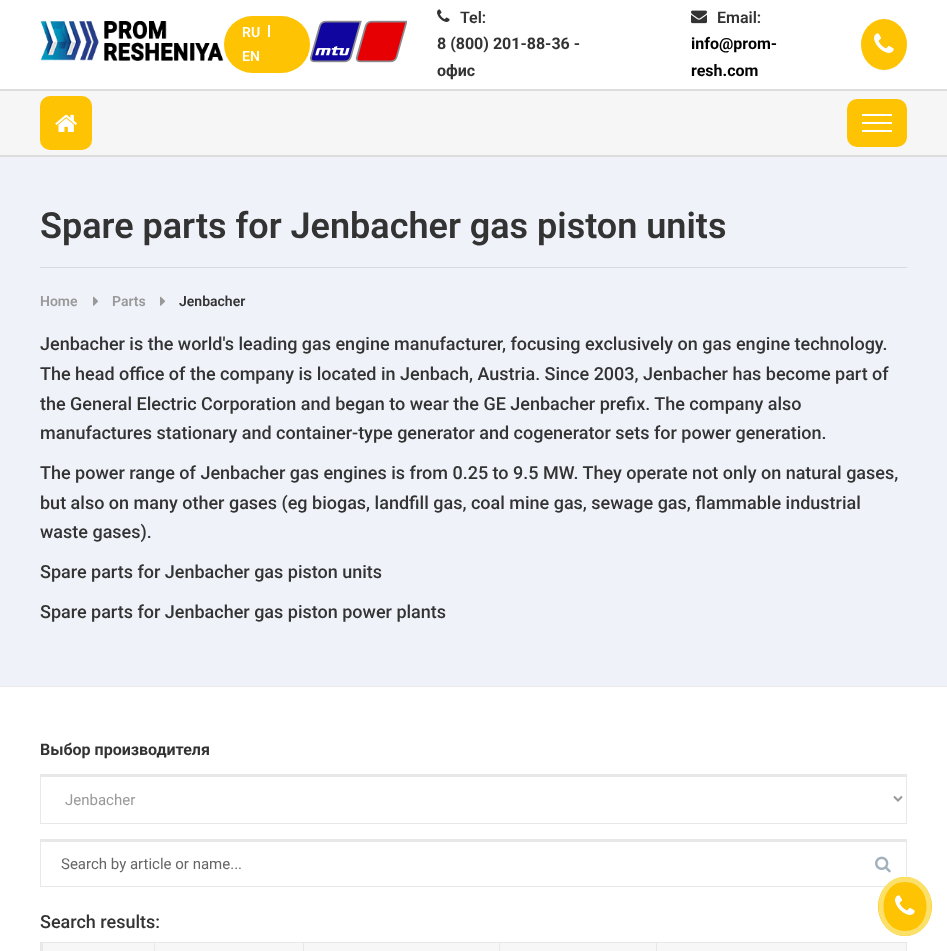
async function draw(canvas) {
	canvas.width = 947;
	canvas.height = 951;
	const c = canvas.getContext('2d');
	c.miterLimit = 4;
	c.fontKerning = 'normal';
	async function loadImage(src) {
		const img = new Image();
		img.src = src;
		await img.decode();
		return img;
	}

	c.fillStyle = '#fff';
	c.fillRect(0, 0, 947, 951);
	c.drawImage(await loadImage('img1.png'), 40, 21, 184, 40);
	c.fillStyle = '#fec303';
	c.beginPath();
	c.roundRect(224, 16, 86, 57, 28.5);
	c.fill();
	c.font = '600 14px Roboto';
	c.fillStyle = '#fff';
	c.fillText('RU', 242, 37);
	c.fillRect(268, 25, 2, 12);
	c.fillText('EN', 242, 61);
	c.drawImage(await loadImage('img2.png'), 310, 20, 97, 43);
	c.drawImage(await loadImage('img3.png'), 437, 9, 13, 13);
	c.font = '600 16px Roboto';
	c.fillStyle = '#333';
	c.fillText('Tel:', 460, 23);
	c.font = 'bold 16px Roboto';
	c.fillText('8 (800) 201-88-36 -', 437, 49);
	c.fillText('офис', 437, 76);
	c.drawImage(await loadImage('img4.png'), 691, 10, 16, 14);
	c.font = '600 16px Roboto';
	c.fillText('Email:', 717, 23);
	c.font = 'bold 16px Roboto';
	c.fillStyle = '#000';
	c.fillText('info@prom-', 691, 49);
	c.fillText('resh.com', 691, 76);
	c.fillStyle = '#fec303';
	c.beginPath();
	c.ellipse(884, 44.5, 23, 25.5, 0, 0, 2 * Math.PI);
	c.fill();
	c.drawImage(await loadImage('img5.png'), 874, 33, 20, 20);
	for (const [x, y, w, h, color] of [
		[0, 91, 947, 64, '#f6f6f6'],
		[0, 89, 947, 2, '#ddd'],
		[0, 155, 947, 2, '#ddd'],
	]) {
		c.fillStyle = color;
		c.fillRect(x, y, w, h);
	}
	c.fillStyle = '#fec303';
	c.beginPath();
	c.roundRect(40, 96, 52, 54, 10);
	c.fill();
	c.drawImage(await loadImage('img6.png'), 55, 114, 22, 18);
	c.beginPath();
	c.roundRect(847, 99, 60, 48, 10);
	c.fill();
	for (const [x, y, w, h, color] of [
		[862, 114, 30, 2, '#fff'],
		[862, 122, 30, 2, '#fff'],
		[862, 130, 30, 2, '#fff'],
		[40, 839, 867, 3, '#e8e8e8'],
		[906, 839, 1, 39, '#e8e8e8'],
		[40, 886, 846, 1, '#e8e8e8'],
	]) {
		c.fillStyle = color;
		c.fillRect(x, y, w, h);
	}
	c.fillStyle = '#fec303';
	c.beginPath();
	c.ellipse(905, 906.5, 27, 29.5, 0, 0, 2 * Math.PI);
	c.fill();
	c.beginPath();
	c.moveTo(905, 879.5);
	c.bezierCurveTo(937, 879.5, 937, 933.5, 905, 933.5);
	c.bezierCurveTo(873, 933.5, 873, 879.5, 905, 879.5);
	c.closePath();
	c.strokeStyle = '#fbe069';
	c.lineWidth = 5;
	c.stroke();
	c.drawImage(await loadImage('img5.png'), 895, 895, 20, 20);
	c.fillStyle = '#eff3f9';
	c.fillRect(0, 157, 947, 529);
	c.fillStyle = '#eaeaea';
	c.fillRect(0, 686, 947, 1);
	c.font = '600 36px Roboto';
	c.fillStyle = '#333';
	c.fillText('Spare parts for Jenbacher gas piston units', 40, 238);
	c.fillStyle = '#d7dbe0';
	c.fillRect(40, 267, 867, 1);
	c.font = '600 14px Roboto';
	c.fillStyle = '#999';
	c.fillText('Home', 40, 306);
	c.drawImage(await loadImage('img7.png'), 93, 296, 6, 10);
	c.fillText('Parts', 112, 306);
	c.drawImage(await loadImage('img7.png'), 160, 296, 6, 10);
	c.fillStyle = '#333';
	c.fillText('Jenbacher', 179, 306);
	c.font = '500 18px Roboto';
	for (const [text, x, y] of [
		['Jenbacher is the world\'s leading gas engine manufacturer, focusing exclusively on gas engine technology.', 40, 350],
		['The head office of the company is located in Jenbach, Austria. Since 2003, Jenbacher has become part of', 40, 380],
		['the General Electric Corporation and began to wear the GE Jenbacher prefix. The company also', 40, 410],
		['manufactures stationary and container-type generator and cogenerator sets for power generation.', 40, 439],
		['The power range of Jenbacher gas engines is from 0.25 to 9.5 MW. They operate not only on natural gases,', 40, 479],
		['but also on many other gases (eg biogas, landfill gas, coal mine gas, sewage gas, flammable industrial', 40, 509],
		['waste gases).', 40, 538],
		['Spare parts for Jenbacher gas piston units', 40, 578],
		['Spare parts for Jenbacher gas piston power plants', 40, 618],
	]) {
		c.fillText(text, x, y);
	}
	c.font = 'bold 16px Roboto';
	c.fillText('Выбор производителя', 40, 755);
	for (const [x, y, w, h, color] of [
		[40, 774, 867, 3, '#e8e8e8'],
		[906, 774, 1, 50, '#e8e8e8'],
		[40, 823, 867, 1, '#e8e8e8'],
		[40, 774, 1, 50, '#e8e8e8'],
	]) {
		c.fillStyle = color;
		c.fillRect(x, y, w, h);
	}
	c.beginPath();
	c.moveTo(894, 796.5);
	c.lineTo(898, 800.5);
	c.lineTo(902, 796.5);
	c.strokeStyle = '#999';
	c.lineWidth = 2;
	c.stroke();
	c.font = '15px Roboto';
	c.fillStyle = '#999';
	c.fillText('Jenbacher', 65, 805);
	c.fillStyle = '#e8e8e8';
	c.fillRect(40, 839, 1, 48);
	c.fillStyle = '#666';
	c.fillText('Search by article or name...', 61, 869);
	c.drawImage(await loadImage('img8.png'), 875, 856, 16, 17);
	c.font = '500 18px Roboto';
	c.fillStyle = '#333';
	c.fillText('Search results:', 40, 928);
	for (const [x, y, w, h, color] of [
		[43, 943, 863, 8, '#f7f7f7'],
		[40, 942, 867, 1, '#e8e8e8'],
		[154, 942, 1, 9, '#e8e8e8'],
		[40, 942, 3, 9, '#e8e8e8'],
		[303, 942, 1, 9, '#e8e8e8'],
		[499, 942, 1, 9, '#e8e8e8'],
		[656, 942, 1, 9, '#e8e8e8'],
		[906, 942, 1, 9, '#e8e8e8'],
	]) {
		c.fillStyle = color;
		c.fillRect(x, y, w, h);
	}
}

draw(document.querySelector('canvas'));
